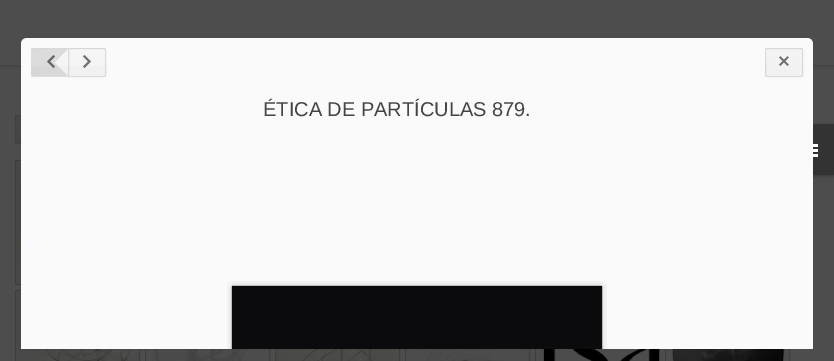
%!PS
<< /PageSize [834 361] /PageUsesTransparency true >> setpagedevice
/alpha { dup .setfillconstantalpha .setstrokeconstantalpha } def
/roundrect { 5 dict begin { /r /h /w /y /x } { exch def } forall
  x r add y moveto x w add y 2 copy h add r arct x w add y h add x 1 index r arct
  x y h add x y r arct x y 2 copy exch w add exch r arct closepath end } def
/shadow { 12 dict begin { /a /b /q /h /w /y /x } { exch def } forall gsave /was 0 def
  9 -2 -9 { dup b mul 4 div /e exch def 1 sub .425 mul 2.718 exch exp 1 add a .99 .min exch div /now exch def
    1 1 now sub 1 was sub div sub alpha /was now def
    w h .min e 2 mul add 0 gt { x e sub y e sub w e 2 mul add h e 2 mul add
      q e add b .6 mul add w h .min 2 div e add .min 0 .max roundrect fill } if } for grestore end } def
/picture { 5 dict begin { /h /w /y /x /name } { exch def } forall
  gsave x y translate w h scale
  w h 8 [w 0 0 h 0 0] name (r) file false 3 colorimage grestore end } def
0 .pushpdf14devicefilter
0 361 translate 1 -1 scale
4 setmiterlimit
0.302 setgray
0 0 834 361 rectfill
0 setgray
0 0 834 65 0 2.5 0.3 shadow
0.302 setgray
0 0 834 65 rectfill
gsave newpath 16 116 moveto 21 116 lineto 21 143 lineto 16 143 lineto closepath clip newpath
<< /ShadingType 2 /ColorSpace /DeviceRGB /Coords [56 116 56 143] /Extend [true true] /Function << /FunctionType 2 /Domain [0 1] /C0 [0.282 0.282 0.282] /C1 [0.271 0.271 0.271] /N 1 >> >> shfill grestore
0.251 setgray
15.5 115.5 81 28 rectstroke
0.239 setgray
15.5 160.5 124 124 rectstroke
15.5 290.5 124 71 rectstroke
(img7.rgb) 16 291 123 70 picture
145.5 290.5 124 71 rectstroke
275.5 290.5 124 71 rectstroke
405.5 290.5 124 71 rectstroke
535.5 290.5 124 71 rectstroke
665.5 290.5 124 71 rectstroke
0 setgray
784 125 50 51 2 1.5 0.3 shadow
0.98 setgray
newpath 27 38 moveto 807 38 lineto 810.5 38 813 40.5 813 44 curveto 813 349 lineto 21 349 lineto 21 44 lineto 21 40.5 23.5 38 27 38 curveto closepath fill
0.961 setgray
newpath 33 48 moveto 69 48 lineto 69 77 lineto 33 77 lineto 32 77 31 76 31 75 curveto 31 50 lineto 31 49 32 48 33 48 curveto closepath fill
gsave newpath 31 48 moveto 69 48 lineto 69 49 lineto 31 49 lineto closepath clip newpath
<< /ShadingType 2 /ColorSpace /DeviceRGB /Coords [50 22 50 49] /Extend [true true] /Function << /FunctionType 2 /Domain [0 1] /C0 [0.961 0.961 0.961] /C1 [0.945 0.945 0.945] /N 1 >> >> shfill grestore
gsave newpath 31 66 moveto 68 66 lineto 68 76 lineto 31 76 lineto closepath clip newpath
<< /ShadingType 2 /ColorSpace /DeviceRGB /Coords [50 49 50 76] /Extend [true true] /Function << /FunctionType 2 /Domain [0 1] /C0 [0.961 0.961 0.961] /C1 [0.945 0.945 0.945] /N 1 >> >> shfill grestore
0.1 alpha
0 setgray
newpath 33 48 moveto 69 48 lineto 54.5 62.5 lineto 45.5 62.5 lineto 31.5 48.5 lineto closepath fill
newpath 69 77 moveto 33 77 lineto 31.5 76.5 lineto 45.5 62.5 lineto 54.5 62.5 lineto closepath fill
newpath 31.5 76.5 moveto 45.5 62.5 lineto 31.5 48.5 lineto 31 50 lineto 31 75 lineto closepath fill
1 alpha
(img1.rgb) 47 55 8 13 picture
0.961 setgray
newpath 68 48 moveto 104 48 lineto 105 48 106 49 106 50 curveto 106 75 lineto 106 76 105 77 104 77 curveto 68 77 lineto closepath fill
gsave newpath 68 48 moveto 106 48 lineto 106 49 lineto 68 49 lineto closepath clip newpath
<< /ShadingType 2 /ColorSpace /DeviceRGB /Coords [87 22 87 49] /Extend [true true] /Function << /FunctionType 2 /Domain [0 1] /C0 [0.961 0.961 0.961] /C1 [0.945 0.945 0.945] /N 1 >> >> shfill grestore
gsave newpath 68 66 moveto 106 66 lineto 106 76 lineto 68 76 lineto closepath clip newpath
<< /ShadingType 2 /ColorSpace /DeviceRGB /Coords [87 49 87 76] /Extend [true true] /Function << /FunctionType 2 /Domain [0 1] /C0 [0.961 0.961 0.961] /C1 [0.945 0.945 0.945] /N 1 >> >> shfill grestore
0.1 alpha
0 setgray
newpath 68.5 48.5 moveto 104 48.5 lineto 105 48.5 105.5 49 105.5 50 curveto 105.5 75 lineto 105.5 76 105 76.5 104 76.5 curveto 68.5 76.5 lineto closepath stroke
1 alpha
(img2.rgb) 83 55 8 13 picture
0.961 setgray
765 48 38 29 2 roundrect fill
gsave
765 48 38 29 2 roundrect clip newpath
gsave newpath 765 48 moveto 803 48 lineto 803 49 lineto 765 49 lineto closepath clip newpath
<< /ShadingType 2 /ColorSpace /DeviceRGB /Coords [784 22 784 49] /Extend [true true] /Function << /FunctionType 2 /Domain [0 1] /C0 [0.961 0.961 0.961] /C1 [0.945 0.945 0.945] /N 1 >> >> shfill grestore
gsave newpath 765 49 moveto 803 49 lineto 803 76 lineto 765 76 lineto closepath clip newpath
<< /ShadingType 2 /ColorSpace /DeviceRGB /Coords [784 49 784 76] /Extend [true true] /Function << /FunctionType 2 /Domain [0 1] /C0 [0.961 0.961 0.961] /C1 [0.945 0.945 0.945] /N 1 >> >> shfill grestore
grestore
0.1 alpha
0 setgray
765.5 48.5 37 28 1.5 roundrect stroke
1 alpha
(img3.rgb) 779 56 10 10 picture
/LiberationSans-Regular [20 0 0 -20 0 0] selectfont
0.267 setgray
263 116 moveto (ÉTICA DE PARTÍCULAS 879.) show
(img4.rgb) 227 281 380 68 picture
(img5.rgb) 231 285 372 64 picture
(img6.rgb) 16 161 5 123 picture
(img8.rgb) 146 349 123 12 picture
(img9.rgb) 276 349 123 12 picture
(img10.rgb) 406 349 123 12 picture
(img11.rgb) 536 349 123 12 picture
(img12.rgb) 666 349 123 12 picture
0.2 setgray
813 124 21 51 rectfill
(img13.rgb) 813 144 5 13 picture
.poppdf14devicefilter showpage
